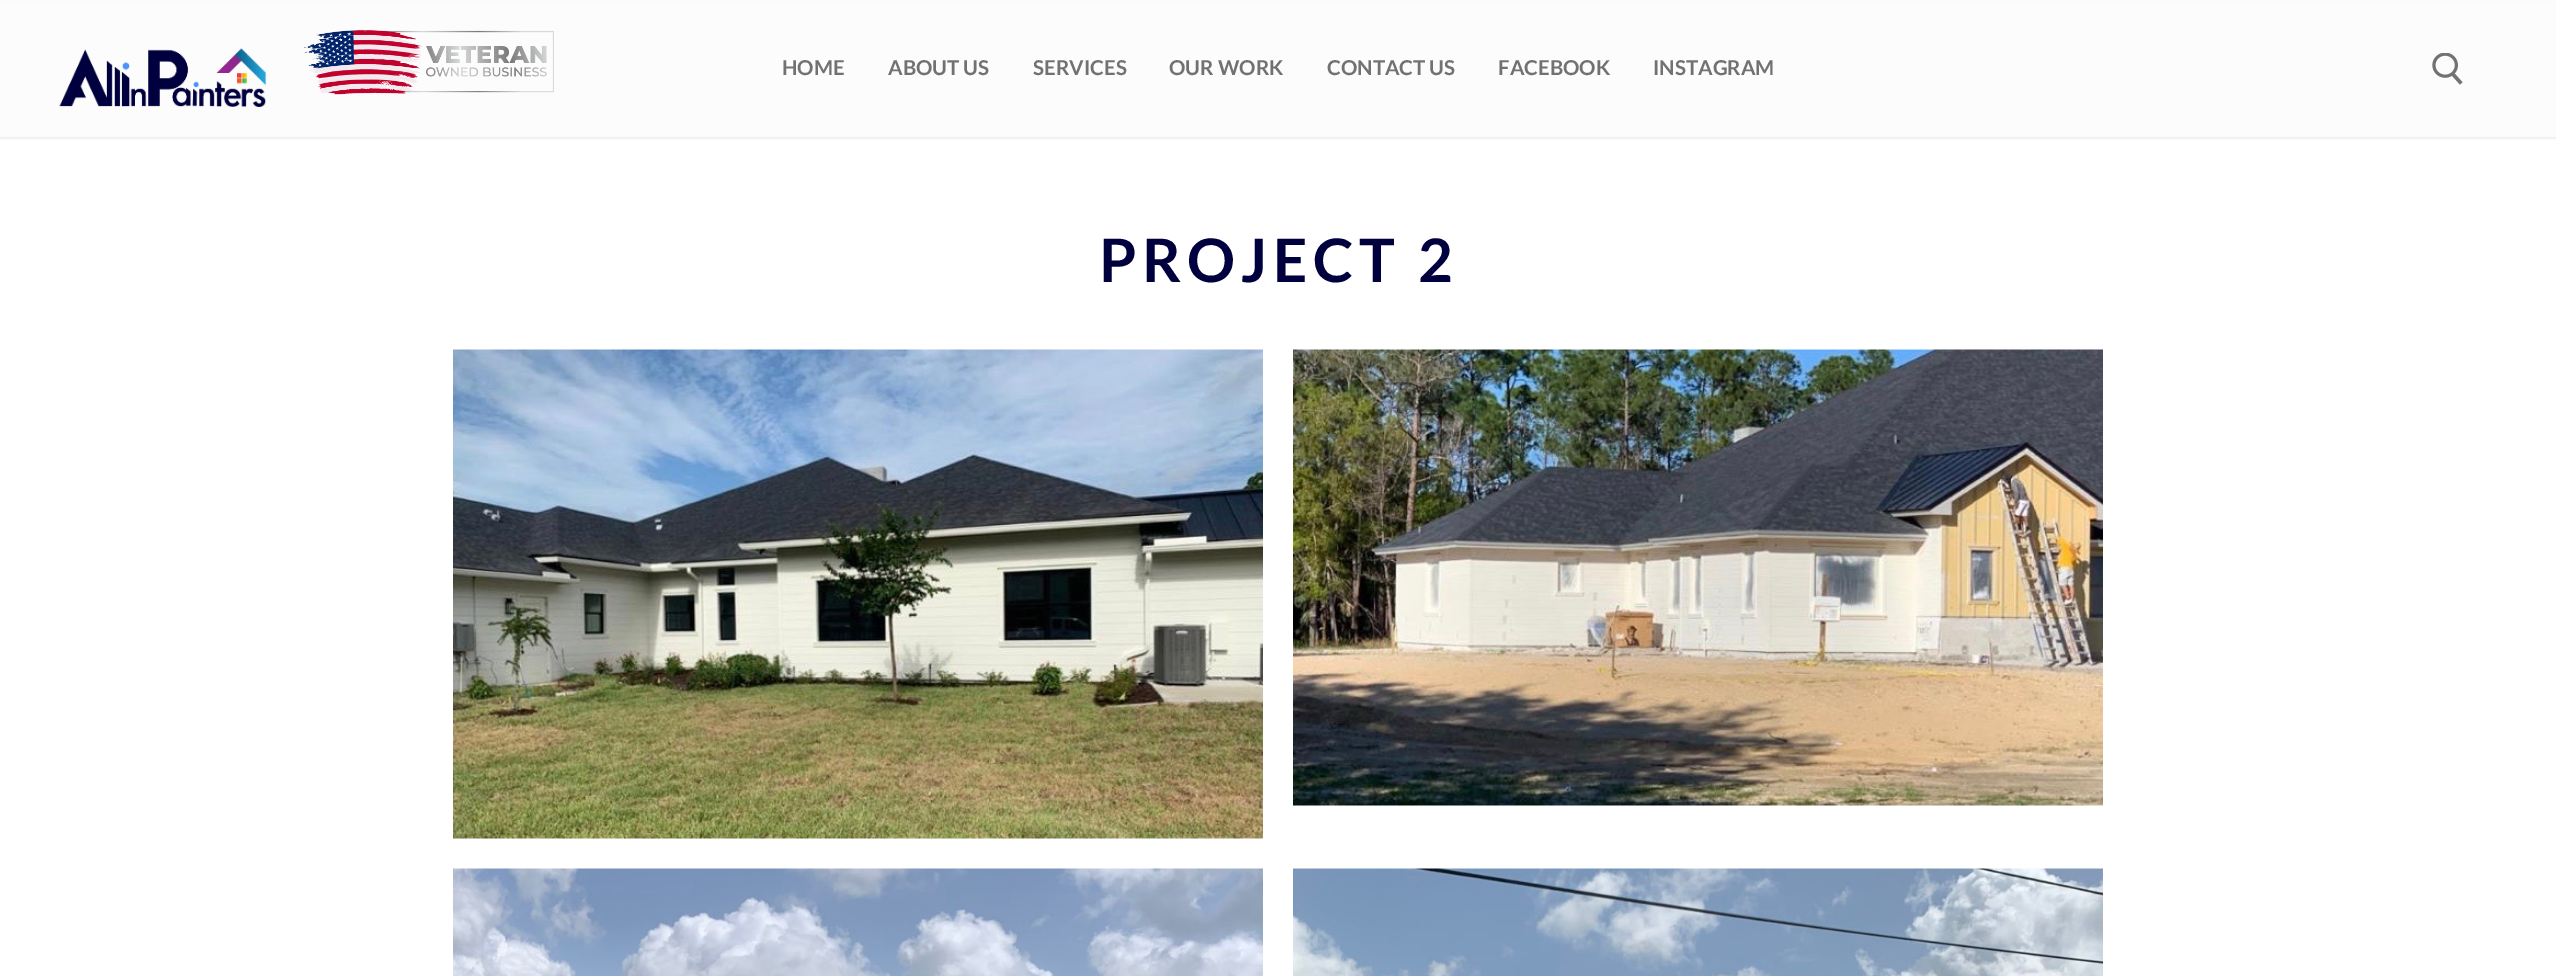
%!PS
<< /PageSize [2556 976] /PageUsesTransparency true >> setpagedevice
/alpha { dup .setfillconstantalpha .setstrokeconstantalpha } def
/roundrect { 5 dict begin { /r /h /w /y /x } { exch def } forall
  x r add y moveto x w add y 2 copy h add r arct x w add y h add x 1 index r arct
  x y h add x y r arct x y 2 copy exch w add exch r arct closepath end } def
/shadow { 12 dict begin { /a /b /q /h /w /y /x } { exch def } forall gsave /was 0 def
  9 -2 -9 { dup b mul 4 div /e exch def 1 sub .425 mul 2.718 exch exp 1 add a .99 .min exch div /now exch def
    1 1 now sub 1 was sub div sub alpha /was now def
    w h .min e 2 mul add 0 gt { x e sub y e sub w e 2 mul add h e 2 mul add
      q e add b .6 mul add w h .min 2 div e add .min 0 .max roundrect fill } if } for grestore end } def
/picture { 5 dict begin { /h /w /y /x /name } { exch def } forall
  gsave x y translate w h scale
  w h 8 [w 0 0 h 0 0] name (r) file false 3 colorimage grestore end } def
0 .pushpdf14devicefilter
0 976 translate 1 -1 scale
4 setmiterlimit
1 setgray
0 0 2556 976 rectfill
0.882 0.898 0.918 setrgbcolor
0 2 2556 136 0 1.5 1 shadow
0.988 setgray
0 1 2556 136 rectfill
(img1.rgb) 59 48 208 59 picture
(img2.rgb) 303 30 251 65 picture
/Lato-Bold [20.5 0 0 -20.5 0 0] selectfont
0.443 setgray
782 75 moveto (HOME) show
888 75 moveto (ABOUT US) show
1033 75 moveto (SERVICES) show
1169 75 moveto (OUR WORK) show
1327 75 moveto (CONTACT US) show
1498 75 moveto (FACEBOOK) show
1653 75 moveto (INSTAGRAM) show
(img3.rgb) 2432 53 31 32 picture
/Lato-Bold [60 0 0 -60 0 0] selectfont
0 0 0.247 setrgbcolor
1099 282 moveto 5.75 0 (PROJECT 2) ashow
(img4.rgb) 453 349 810 490 picture
(img5.rgb) 1293 349 810 457 picture
(img6.rgb) 453 868 810 108 picture
(img7.rgb) 1293 868 810 108 picture
.poppdf14devicefilter showpage
